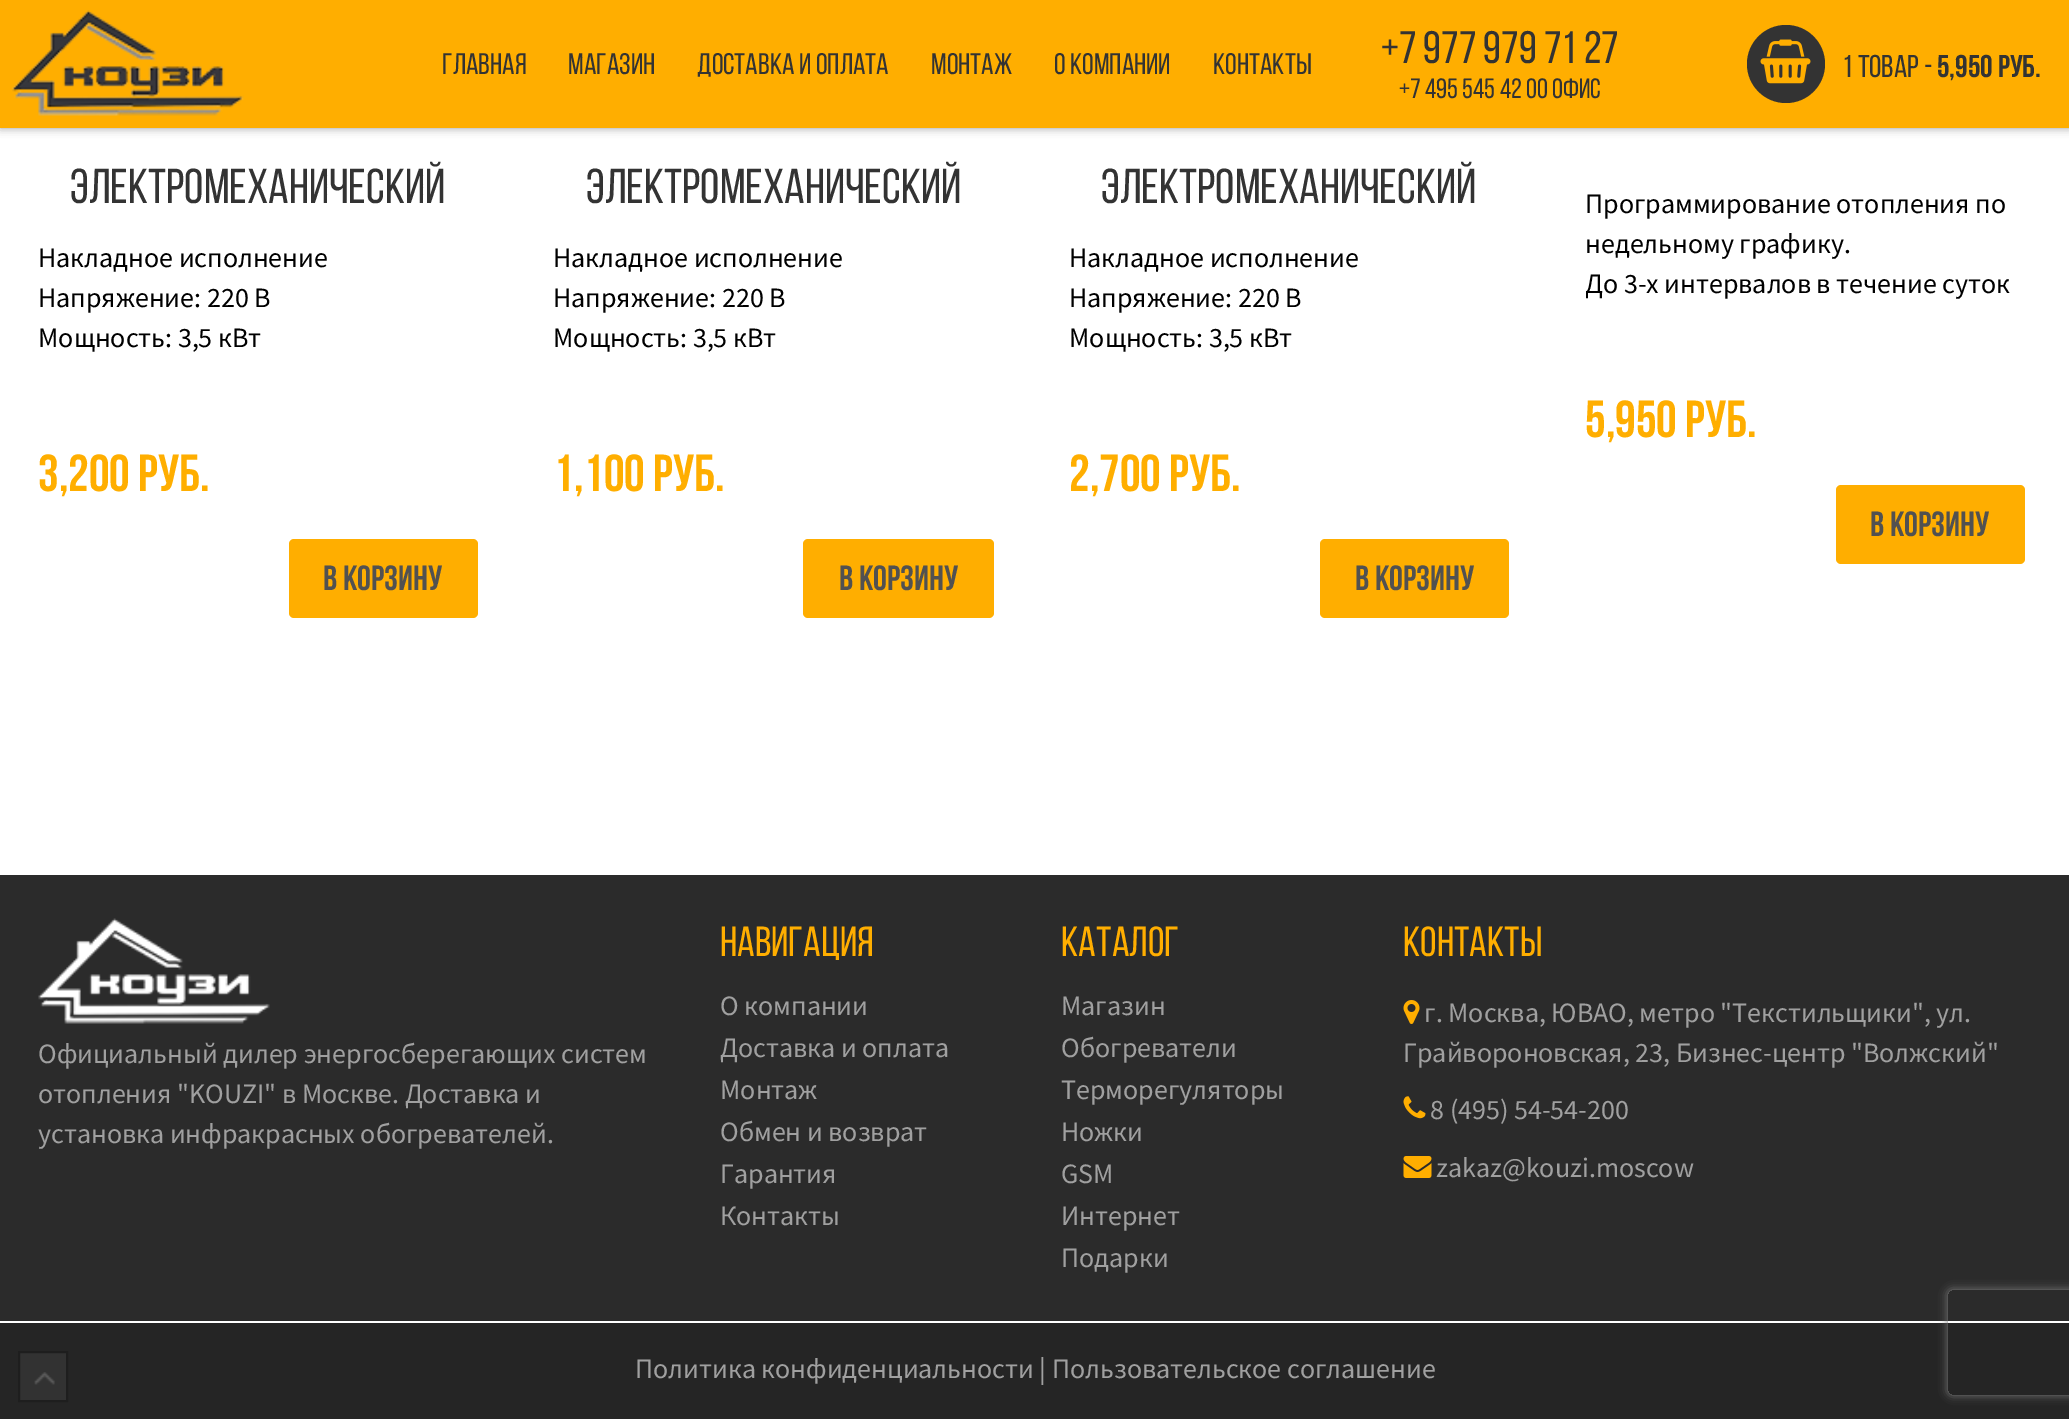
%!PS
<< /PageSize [2069 1419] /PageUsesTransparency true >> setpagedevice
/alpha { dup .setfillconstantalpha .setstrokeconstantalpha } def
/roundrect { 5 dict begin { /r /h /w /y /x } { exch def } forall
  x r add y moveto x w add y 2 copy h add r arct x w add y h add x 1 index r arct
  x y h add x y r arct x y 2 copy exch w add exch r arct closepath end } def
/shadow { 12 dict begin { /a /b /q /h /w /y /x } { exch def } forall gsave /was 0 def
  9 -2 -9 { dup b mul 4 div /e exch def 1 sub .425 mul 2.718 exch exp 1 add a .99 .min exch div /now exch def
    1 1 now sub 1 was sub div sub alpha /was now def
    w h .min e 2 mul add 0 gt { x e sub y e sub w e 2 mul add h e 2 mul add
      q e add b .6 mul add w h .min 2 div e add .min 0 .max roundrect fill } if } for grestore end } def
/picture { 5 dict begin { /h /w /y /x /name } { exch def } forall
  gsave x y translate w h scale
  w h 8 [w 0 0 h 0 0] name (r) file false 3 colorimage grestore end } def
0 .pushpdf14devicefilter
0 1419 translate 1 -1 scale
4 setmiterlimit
1 setgray
0 0 2069 1419 rectfill
0 setgray
0 0 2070 128 0 4.5 0.37 shadow
1 0.682 0 setrgbcolor
0 0 2069 128 rectfill
(img1.rgb) 12 10 232 106 picture
/BebasNeue-Regular [29.75 0 0 -29.75 0 0] selectfont
0.2 setgray
442 74 moveto (ГЛАВНАЯ) show
568 74 moveto (МАГАЗИН) show
697 74 moveto (ДОСТАВКА И ОПЛАТА) show
931 74 moveto (МОНТАЖ) show
1054 74 moveto (О КОМПАНИИ) show
1213 74 moveto (КОНТАКТЫ) show
/BebasNeue-Regular [45.5 0 0 -45.5 0 0] selectfont
1381 63 moveto (+7 977 979 71 27) show
/BebasNeue-Regular [28 0 0 -28 0 0] selectfont
1399 98 moveto (+7 495 545 42 00 офис) show
newpath 1786 64 39 0 360 arc closepath fill
(img2.rgb) 1760 39 51 45 picture
/BebasNeue-Regular [31.5 0 0 -31.5 0 0] selectfont
1842 77 moveto (1 товар -) show
/BebasNeue-Bold [31.5 0 0 -31.5 0 0] selectfont
1937 77 moveto (5,950 руб.) show
/BebasNeue-Regular [49 0 0 -49 0 0] selectfont
70 203 moveto (электромеханический) show
/SourceSansPro-Regular [28 0 0 -28 0 0] selectfont
0 setgray
38 267 moveto (Накладное исполнение) show
38 307 moveto (Напряжение: 220 В) show
38 347 moveto (Мощность: 3,5 кВт) show
/BebasNeue-Bold [52 0 0 -52 0 0] selectfont
1 0.682 0 setrgbcolor
38 491 moveto (3,200 руб.) show
289 539 189 79 5 roundrect fill
/BebasNeue-Bold [35 0 0 -35 0 0] selectfont
0.318 setgray
323 590 moveto (В корзину) show
/BebasNeue-Regular [49 0 0 -49 0 0] selectfont
0.2 setgray
586 203 moveto (электромеханический) show
/SourceSansPro-Regular [28 0 0 -28 0 0] selectfont
0 setgray
553 267 moveto (Накладное исполнение) show
553 307 moveto (Напряжение: 220 В) show
553 347 moveto (Мощность: 3,5 кВт) show
/BebasNeue-Bold [52 0 0 -52 0 0] selectfont
1 0.682 0 setrgbcolor
553 491 moveto (1,100 руб.) show
803 539 191 79 5 roundrect fill
/BebasNeue-Bold [35 0 0 -35 0 0] selectfont
0.318 setgray
839 590 moveto (В корзину) show
/BebasNeue-Regular [49 0 0 -49 0 0] selectfont
0.2 setgray
1101 203 moveto (электромеханический) show
/SourceSansPro-Regular [28 0 0 -28 0 0] selectfont
0 setgray
1069 267 moveto (Накладное исполнение) show
1069 307 moveto (Напряжение: 220 В) show
1069 347 moveto (Мощность: 3,5 кВт) show
/BebasNeue-Bold [52 0 0 -52 0 0] selectfont
1 0.682 0 setrgbcolor
1069 491 moveto (2,700 руб.) show
1320 539 189 79 5 roundrect fill
/BebasNeue-Bold [35 0 0 -35 0 0] selectfont
0.318 setgray
1355 590 moveto (В корзину) show
/SourceSansPro-Regular [28 0 0 -28 0 0] selectfont
0 setgray
1585 213 moveto (Программирование отопления по) show
1585 253 moveto (недельному графику.) show
gsave
1586 184 439 122 rectclip
1585 293 moveto (До 3-х интервалов в течение суток) show
grestore
/BebasNeue-Bold [52 0 0 -52 0 0] selectfont
1 0.682 0 setrgbcolor
1585 437 moveto (5,950 руб.) show
1836 485 189 79 5 roundrect fill
/BebasNeue-Bold [35 0 0 -35 0 0] selectfont
0.318 setgray
1870 536 moveto (В корзину) show
0.169 setgray
0 875 2069 446 rectfill
(img3.rgb) 38 918 232 106 picture
/SourceSansPro-Regular [28 0 0 -28 0 0] selectfont
0.627 setgray
38 1063 moveto (Официальный дилер энергосберегающих систем) show
38 1103 moveto (отопления "KOUZI" в Москве. Доставка и) show
38 1143 moveto (установка инфракрасных обогревателей.) show
/BebasNeue-Regular [42 0 0 -42 0 0] selectfont
1 0.682 0 setrgbcolor
720 956 moveto (Навигация) show
/SourceSansPro-Regular [28 0 0 -28 0 0] selectfont
0.627 setgray
720 1015 moveto (О компании) show
720 1057 moveto (Доставка и оплата) show
720 1099 moveto (Монтаж) show
720 1141 moveto (Обмен и возврат) show
720 1183 moveto (Гарантия) show
720 1225 moveto (Контакты) show
/BebasNeue-Regular [42 0 0 -42 0 0] selectfont
1 0.682 0 setrgbcolor
1061 956 moveto (Каталог) show
/SourceSansPro-Regular [28 0 0 -28 0 0] selectfont
0.627 setgray
1061 1015 moveto (Магазин) show
1061 1057 moveto (Обогреватели) show
1061 1099 moveto (Терморегуляторы) show
1061 1141 moveto (Ножки) show
1061 1183 moveto (GSM) show
1061 1225 moveto (Интернет) show
1061 1267 moveto (Подарки) show
/BebasNeue-Regular [42 0 0 -42 0 0] selectfont
1 0.682 0 setrgbcolor
1403 956 moveto (Контакты) show
(img4.rgb) 1403 1000 17 24 picture
/SourceSansPro-Regular [28 0 0 -28 0 0] selectfont
0.627 setgray
1424 1022 moveto (г. Москва, ЮВАО, метро "Текстильщики", ул.) show
1403 1062 moveto (Грайвороновская, 23, Бизнес-центр "Волжский") show
(img5.rgb) 1403 1096 23 23 picture
1430 1119 moveto (8 \(495\) 54-54-200) show
(img6.rgb) 1403 1156 29 22 picture
1436 1177 moveto (zakaz@kouzi.moscow) show
0.145 setgray
0 1323 2069 96 rectfill
0.196 setgray
20 1353 46 47 rectfill
(img7.rgb) 34 1372 21 13 picture
0.118 setgray
2 setlinewidth
19 1352 48 49 rectstroke
0.627 setgray
635 1378 moveto (Политика конфиденциальности) show
1039 1378 moveto (|) show
1052 1378 moveto (Пользовательское соглашение) show
gsave
newpath 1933 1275 moveto 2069 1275 lineto 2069 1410 lineto 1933 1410 lineto closepath 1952 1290 moveto 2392 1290 lineto 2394 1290 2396 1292 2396 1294 curveto 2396 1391 lineto 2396 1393 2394 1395 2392 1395 curveto 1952 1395 lineto 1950 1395 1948 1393 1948 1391 curveto 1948 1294 lineto 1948 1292 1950 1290 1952 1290 curveto closepath eoclip newpath
0.502 setgray
1948 1290 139 105 4 4.5 1 shadow
grestore
.poppdf14devicefilter showpage
